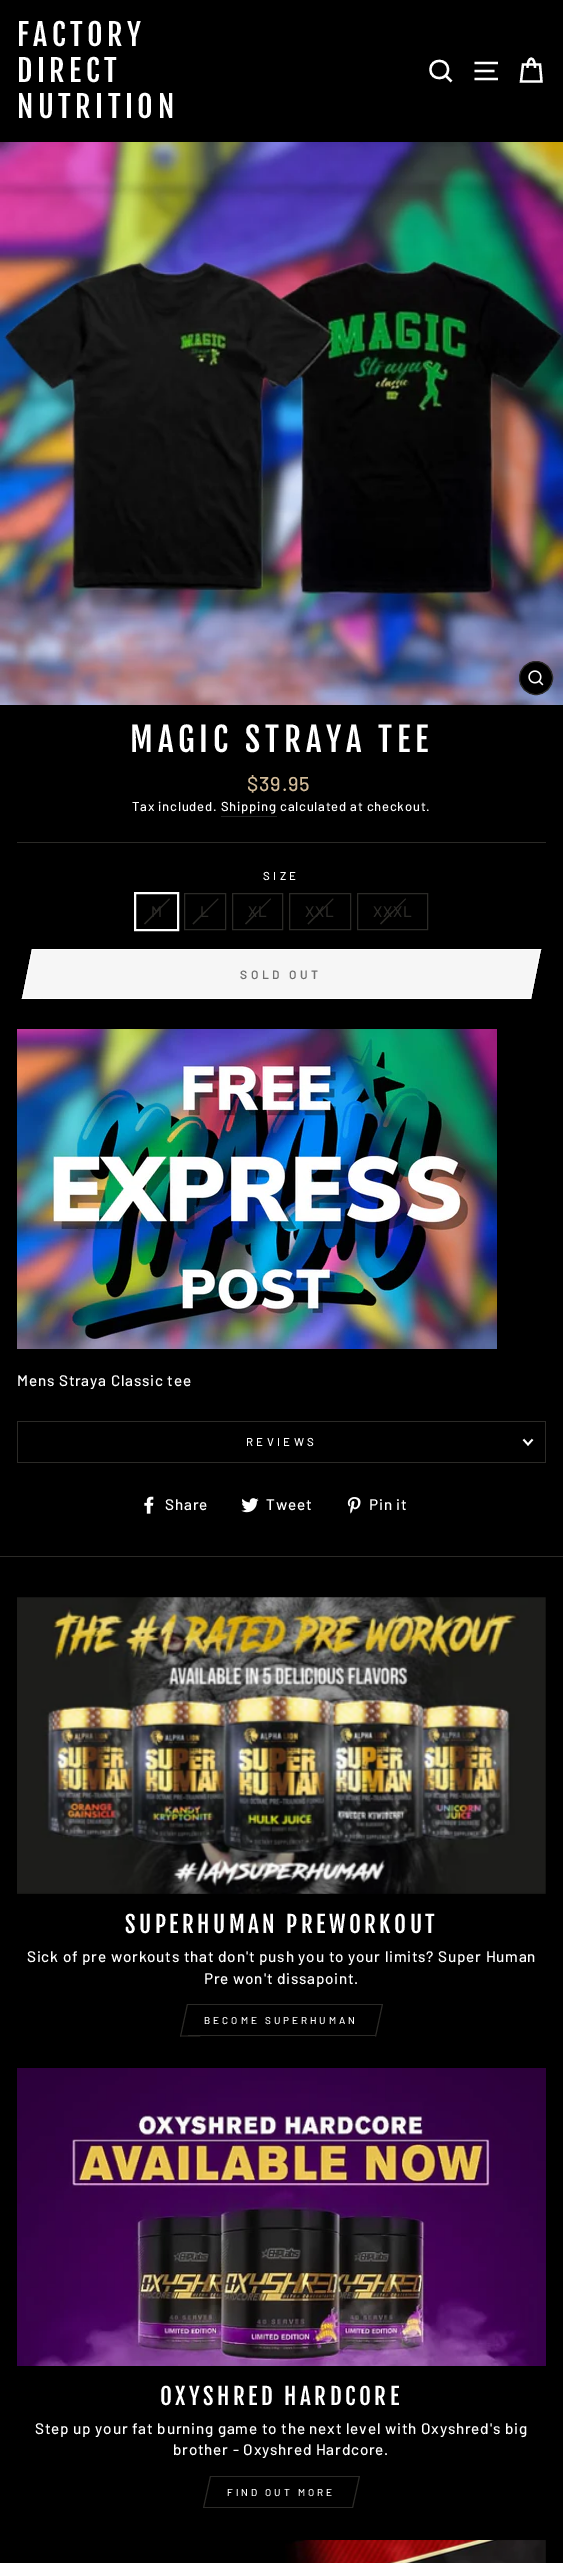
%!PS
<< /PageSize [563 2563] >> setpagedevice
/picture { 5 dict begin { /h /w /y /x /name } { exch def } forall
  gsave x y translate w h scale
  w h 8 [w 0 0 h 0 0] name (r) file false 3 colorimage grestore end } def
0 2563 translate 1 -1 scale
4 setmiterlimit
0 setgray
0 0 563 2563 rectfill
/FjallaOne-Regular [30 0 0 -30 0 0] selectfont
1 setgray
17 46 moveto 4.5 0 (FACTORY) ashow
17 82 moveto 4.5 0 (DIRECT) ashow
17 118 moveto 4.5 0 (NUTRITION) ashow
2.3 setlinewidth
newpath 448 69.5 moveto 448 81 430.5 81 430.5 69.5 curveto 430.5 58 448 58 448 69.5 curveto closepath 451.5 81.5 moveto 445.5 75.5 lineto stroke
newpath 474.5 63 moveto 498 63 lineto 474.5 71 moveto 494.5 71 lineto 474.5 79 moveto 498 79 lineto 527.5 68 moveto 527.5 55.5 535 55.5 535 68 curveto stroke
newpath 523 64.5 moveto 540 64.5 lineto 541.5 81.5 lineto 521 81.5 lineto closepath stroke
(img1.rgb) 0 142 563 563 picture
0 setgray
newpath 536 678 16.5 0 360 arc closepath gsave fill grestore
0.169 0.165 0.153 setrgbcolor
1 setlinewidth
stroke
(img2.rgb) 528 670 16 16 picture
/FjallaOne-Regular [33 0 0 -33 0 0] selectfont
1 setgray
130 752 moveto 4.9 0 (MAGIC STRAYA TEE) ashow
/Barlow-Medium [20 0 0 -20 0 0] selectfont
0.82 0.729 0.596 setrgbcolor
247 791 moveto 0.77 0 ($39.95) ashow
/Barlow-Medium [13 0 0 -13 0 0] selectfont
1 setgray
132 811 moveto 0.77 0 (Tax included. Shipping) ashow
280 811 moveto 0.77 0 (calculated at checkout.) ashow
0.149 setgray
221 816 56 1 rectfill
0.169 0.165 0.153 setrgbcolor
17 842 529 1 rectfill
/Barlow-Medium [11.5 0 0 -11.5 0 0] selectfont
1 setgray
263 880 moveto 3.4 0 (SIZE) ashow
2 setlinewidth
135 893 43 37 rectstroke
0.169 0.165 0.153 setrgbcolor
newpath 169 898.5 moveto 170 899 lineto 145 924.5 lineto 144 923.5 lineto closepath fill
/Barlow-Medium [15.3 0 0 -15.3 0 0] selectfont
151 917 moveto 0.77 0 (M) ashow
1 setlinewidth
184.5 893.5 41 36 rectstroke
newpath 218 898.5 moveto 218.5 899 lineto 193.5 924.5 lineto 192.5 923.5 lineto closepath fill
200 917 moveto 0.77 0 (L) ashow
232.5 893.5 50 36 rectstroke
newpath 270.5 898.5 moveto 271 899 lineto 246 924.5 lineto 245 923.5 lineto closepath fill
248 917 moveto 0.77 0 (XL) ashow
289.5 893.5 61 36 rectstroke
newpath 333 898.5 moveto 333.5 899 lineto 308.5 924.5 lineto 307.5 923.5 lineto closepath fill
305 917 moveto 0.77 0 (XXL) ashow
357.5 893.5 70 36 rectstroke
newpath 405.5 898.5 moveto 406 899 lineto 381 924.5 lineto 380 923.5 lineto closepath fill
373 917 moveto 0.77 0 (XXXL) ashow
0.965 setgray
42 950 479 48 rectfill
1 setgray
52 949 469 1 rectfill
42 998 469 1 rectfill
0.965 setgray
newpath 32 949 moveto 52 949 lineto 42 999 lineto 22 999 lineto closepath fill
1 setgray
32 949 20 1 rectfill
newpath 22 998 moveto 42 998 lineto 41.5 999 lineto 21.5 999 lineto closepath fill
newpath 32 949 moveto 33 949 lineto 23 999 lineto 22 999 lineto closepath fill
/Barlow-SemiBold [12 0 0 -12 0 0] selectfont
0.443 setgray
240 979 moveto 3.5 0 (SOLD OUT) ashow
0.965 setgray
newpath 521 949 moveto 541 949 lineto 531 999 lineto 511 999 lineto closepath fill
1 setgray
newpath 521.5 949 moveto 541.5 949 lineto 541 950 lineto 521 950 lineto closepath fill
newpath 540 949 moveto 541 949 lineto 531 999 lineto 530 999 lineto closepath fill
511 998 20 1 rectfill
(img3.rgb) 17 1029 480 320 picture
/Barlow-Medium [15.3 0 0 -15.3 0 0] selectfont
17 1386 moveto 0.77 0 (Mens Straya Classic tee) ashow
0.169 0.165 0.153 setrgbcolor
17 1462 529 1 rectfill
17 1421 529 1 rectfill
545 1421 1 41 rectfill
17 1421 1 41 rectfill
/Barlow-Medium [11.5 0 0 -11.5 0 0] selectfont
1 setgray
246 1446 moveto 3.4 0 (REVIEWS) ashow
1.8 setlinewidth
newpath 523.5 1439.5 moveto 528 1444.5 lineto 532.5 1439.5 lineto stroke
(img4.rgb) 144 1496 10 18 picture
/Barlow-Medium [15.3 0 0 -15.3 0 0] selectfont
165 1510 moveto 0.77 0 (Share) ashow
(img5.rgb) 241 1498 18 15 picture
266 1510 moveto 0.77 0 (Tweet) ashow
(img6.rgb) 347 1497 14 17 picture
369 1510 moveto 0.77 0 (Pin it) ashow
0.169 0.165 0.153 setrgbcolor
0 1556 563 1 rectfill
(img7.rgb) 17 1597 529 297 picture
/FjallaOne-Regular [23 0 0 -23 0 0] selectfont
1 setgray
125 1933 moveto 3.4 0 (SUPERHUMAN PREWORKOUT) ashow
/Barlow-Medium [15.3 0 0 -15.3 0 0] selectfont
27 1962 moveto 0.77 0 (Sick of pre workouts that don't push you to your limits? Super Human) ashow
204 1984 moveto 0.77 0 (Pre won't dissapoint.) ashow
0.169 0.165 0.153 setrgbcolor
188 2004 175 1 rectfill
188 2035 187 1 rectfill
newpath 180.5 2035.5 moveto 200.5 2035.5 lineto 200 2036.5 lineto 180 2036.5 lineto closepath fill
newpath 187 2004 moveto 188 2004 lineto 181 2036.5 lineto 180 2036.5 lineto closepath fill
/Barlow-Medium [10 0 0 -10 0 0] selectfont
1 setgray
204 2024 moveto 3 0 (BECOME SUPERHUMAN) ashow
0.169 0.165 0.153 setrgbcolor
newpath 363 2004 moveto 383 2004 lineto 382.5 2005 lineto 362.5 2005 lineto closepath fill
newpath 382 2004 moveto 383 2004 lineto 376 2036.5 lineto 375 2036.5 lineto closepath fill
(img8.rgb) 17 2068 529 298 picture
/FjallaOne-Regular [23 0 0 -23 0 0] selectfont
1 setgray
160 2405 moveto 3.4 0 (OXYSHRED HARDCORE) ashow
/Barlow-Medium [15.3 0 0 -15.3 0 0] selectfont
35 2434 moveto 0.77 0 (Step up your fat burning game to the next level with Oxyshred's big) ashow
173 2455 moveto 0.77 0 (brother - Oxyshred Hardcore.) ashow
0.169 0.165 0.153 setrgbcolor
211 2476 129 1 rectfill
223 2507 129 1 rectfill
newpath 203.5 2507 moveto 223.5 2507 lineto 223 2508 lineto 203 2508 lineto closepath fill
newpath 210 2476 moveto 211 2476 lineto 204 2508 lineto 203 2508 lineto closepath fill
/Barlow-Medium [10 0 0 -10 0 0] selectfont
1 setgray
227 2496 moveto 3 0 (FIND OUT MORE) ashow
0.169 0.165 0.153 setrgbcolor
newpath 340 2476 moveto 360 2476 lineto 359.5 2477 lineto 339.5 2477 lineto closepath fill
newpath 359 2476 moveto 360 2476 lineto 353 2508 lineto 352 2508 lineto closepath fill
(img9.rgb) 285 2540 261 23 picture
showpage
